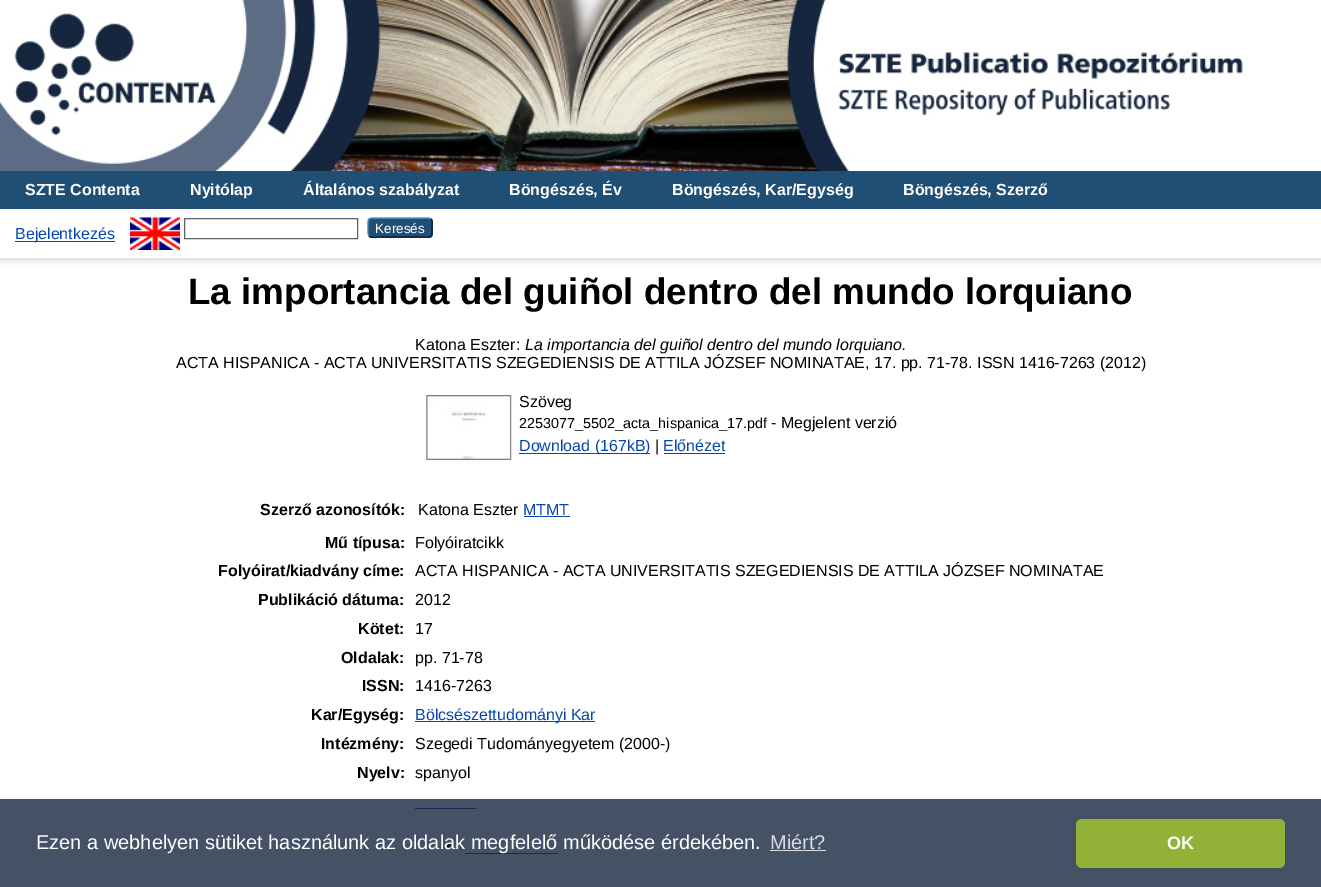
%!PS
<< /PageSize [1321 887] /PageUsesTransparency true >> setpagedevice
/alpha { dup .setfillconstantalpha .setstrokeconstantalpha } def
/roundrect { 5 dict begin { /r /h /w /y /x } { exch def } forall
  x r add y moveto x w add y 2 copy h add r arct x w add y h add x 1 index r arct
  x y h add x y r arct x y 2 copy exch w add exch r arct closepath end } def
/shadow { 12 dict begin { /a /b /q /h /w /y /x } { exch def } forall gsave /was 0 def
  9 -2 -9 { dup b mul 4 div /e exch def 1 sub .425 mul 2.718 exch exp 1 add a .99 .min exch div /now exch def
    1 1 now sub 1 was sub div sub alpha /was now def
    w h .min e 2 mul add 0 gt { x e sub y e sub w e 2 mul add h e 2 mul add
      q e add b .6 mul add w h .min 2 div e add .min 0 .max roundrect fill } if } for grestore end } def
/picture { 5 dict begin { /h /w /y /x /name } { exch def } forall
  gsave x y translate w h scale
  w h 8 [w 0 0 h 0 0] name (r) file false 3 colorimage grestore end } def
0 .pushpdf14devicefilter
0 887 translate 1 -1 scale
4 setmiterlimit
1 setgray
0 0 1321 887 rectfill
(img1.rgb) 0 0 1243 171 picture
0.125 0.31 0.463 setrgbcolor
0 171 1321 38 rectfill
/LiberationSans-Bold [16 0 0 -16 0 0] selectfont
1 setgray
25 195 moveto (SZTE Contenta) show
190 195 moveto (Nyitólap) show
303 195 moveto (Általános szabályzat) show
509 195 moveto (Böngészés, Év) show
672 195 moveto (Böngészés, Kar/Egység) show
903 195 moveto (Böngészés, Szerző) show
0.392 setgray
0 213 1321 47 0 4 0.3 shadow
1 setgray
0 210 1321 48 rectfill
0.024 0.271 0.678 setrgbcolor
15 241 100 1 rectfill
/LiberationSans-Regular [16 0 0 -16 0 0] selectfont
15 239 moveto (Bejelentkezés) show
(img2.rgb) 130 217 50 33 picture
0.376 setgray
184.5 218.5 173 20 rectstroke
0.122 0.31 0.463 setrgbcolor
368 218 65 20 4 roundrect fill
0.357 0.592 0.78 setrgbcolor
1.2 setlinewidth
newpath 369 219 moveto 371 218 lineto 429 218 lineto 431 219 lineto stroke
0.051 0.129 0.192 setrgbcolor
newpath 431 219 moveto 433 221 432 225 432 227.5 curveto 432 239 432 237 419 237 curveto 381 237 lineto 380 237 371.5 238.5 369 236 curveto stroke
0.322 0.529 0.702 setrgbcolor
newpath 369 236 moveto 367.5 234 368 229.5 368 227.5 curveto 368 225.5 367.5 221 369 219 curveto stroke
/LiberationSans-Regular [13.5 0 0 -13.5 0 0] selectfont
1 setgray
375 233 moveto (Keresés) show
/LiberationSans-Bold [36.8 0 0 -36.8 0 0] selectfont
0 setgray
188 304 moveto (La importancia del guiñol dentro del mundo lorquiano) show
/LiberationSans-Regular [16 0 0 -16 0 0] selectfont
415 350 moveto (Katona Eszter:) show
/LiberationSans-Italic [16 0 0 -16 0 0] selectfont
525 350 moveto (La importancia del guiñol dentro del mundo lorquiano.) show
/LiberationSans-Regular [16 0 0 -16 0 0] selectfont
176 368 moveto (ACTA HISPANICA - ACTA UNIVERSITATIS SZEGEDIENSIS DE ATTILA JÓZSEF NOMINATAE, 17. pp. 71-78. ISSN 1416-7263 \(2012\)) show
(img3.rgb) 426 395 86 65 picture
519 407 moveto (Szöveg) show
/LiberationSans-Regular [14.4 0 0 -14.4 0 0] selectfont
519 428 moveto (2253077_5502_acta_hispanica_17.pdf) show
/LiberationSans-Regular [16 0 0 -16 0 0] selectfont
771 428 moveto (- Megjelent verzió) show
0.024 0.271 0.678 setrgbcolor
519 453 131 1 rectfill
519 451 moveto (Download \(167kB\)) show
0 setgray
655 451 moveto (|) show
0.024 0.271 0.678 setrgbcolor
663 451 moveto (Előnézet) show
664 453 61 1 rectfill
/LiberationSans-Bold [16 0 0 -16 0 0] selectfont
0 setgray
260 515 moveto (Szerző azonosítók:) show
/LiberationSans-Regular [16 0 0 -16 0 0] selectfont
418 515 moveto (Katona Eszter) show
0.024 0.271 0.678 setrgbcolor
523 515 moveto (MTMT) show
524 516 46 1 rectfill
/LiberationSans-Bold [16 0 0 -16 0 0] selectfont
0 setgray
325 548 moveto (Mű típusa:) show
/LiberationSans-Regular [16 0 0 -16 0 0] selectfont
415 548 moveto (Folyóiratcikk) show
/LiberationSans-Bold [16 0 0 -16 0 0] selectfont
218 576 moveto (Folyóirat/kiadvány címe:) show
/LiberationSans-Regular [16 0 0 -16 0 0] selectfont
415 576 moveto (ACTA HISPANICA - ACTA UNIVERSITATIS SZEGEDIENSIS DE ATTILA JÓZSEF NOMINATAE) show
/LiberationSans-Bold [16 0 0 -16 0 0] selectfont
258 605 moveto (Publikáció dátuma:) show
/LiberationSans-Regular [16 0 0 -16 0 0] selectfont
415 605 moveto (2012) show
/LiberationSans-Bold [16 0 0 -16 0 0] selectfont
358 634 moveto (Kötet:) show
/LiberationSans-Regular [16 0 0 -16 0 0] selectfont
415 634 moveto (17) show
/LiberationSans-Bold [16 0 0 -16 0 0] selectfont
341 663 moveto (Oldalak:) show
/LiberationSans-Regular [16 0 0 -16 0 0] selectfont
415 663 moveto (pp. 71-78) show
/LiberationSans-Bold [16 0 0 -16 0 0] selectfont
362 691 moveto (ISSN:) show
/LiberationSans-Regular [16 0 0 -16 0 0] selectfont
415 691 moveto (1416-7263) show
/LiberationSans-Bold [16 0 0 -16 0 0] selectfont
311 720 moveto (Kar/Egység:) show
0.024 0.271 0.678 setrgbcolor
415 721 180 1 rectfill
/LiberationSans-Regular [16 0 0 -16 0 0] selectfont
415 720 moveto (Bölcsészettudományi Kar) show
/LiberationSans-Bold [16 0 0 -16 0 0] selectfont
0 setgray
321 749 moveto (Intézmény:) show
/LiberationSans-Regular [16 0 0 -16 0 0] selectfont
415 749 moveto (Szegedi Tudományegyetem \(2000-\)) show
/LiberationSans-Bold [16 0 0 -16 0 0] selectfont
357 778 moveto (Nyelv:) show
/LiberationSans-Regular [16 0 0 -16 0 0] selectfont
415 778 moveto (spanyol) show
0.024 0.271 0.678 setrgbcolor
415 808 61 1 rectfill
0 setgray
newpath 448.5 846.5 2.5 0 360 arc closepath fill
0.024 0.271 0.678 setrgbcolor
465 853 93 1 rectfill
0.8 alpha
0.086 0.149 0.247 setrgbcolor
0 799 1321 88 rectfill
/LiberationSans-Regular [20 0 0 -20 0 0] selectfont
1 alpha
1 setgray
36 849 moveto (Ezen a webhelyen sütiket használunk az oldalak megfelelő működése érdekében.) show
0.855 0.863 0.878 setrgbcolor
770 849 moveto (Miért?) show
770 850 56 1 rectfill
0.569 0.698 0.212 setrgbcolor
1076 819 209 49 6 roundrect fill
/LiberationSans-Bold [18 0 0 -18 0 0] selectfont
1 setgray
1167 849 moveto (OK) show
.poppdf14devicefilter showpage
